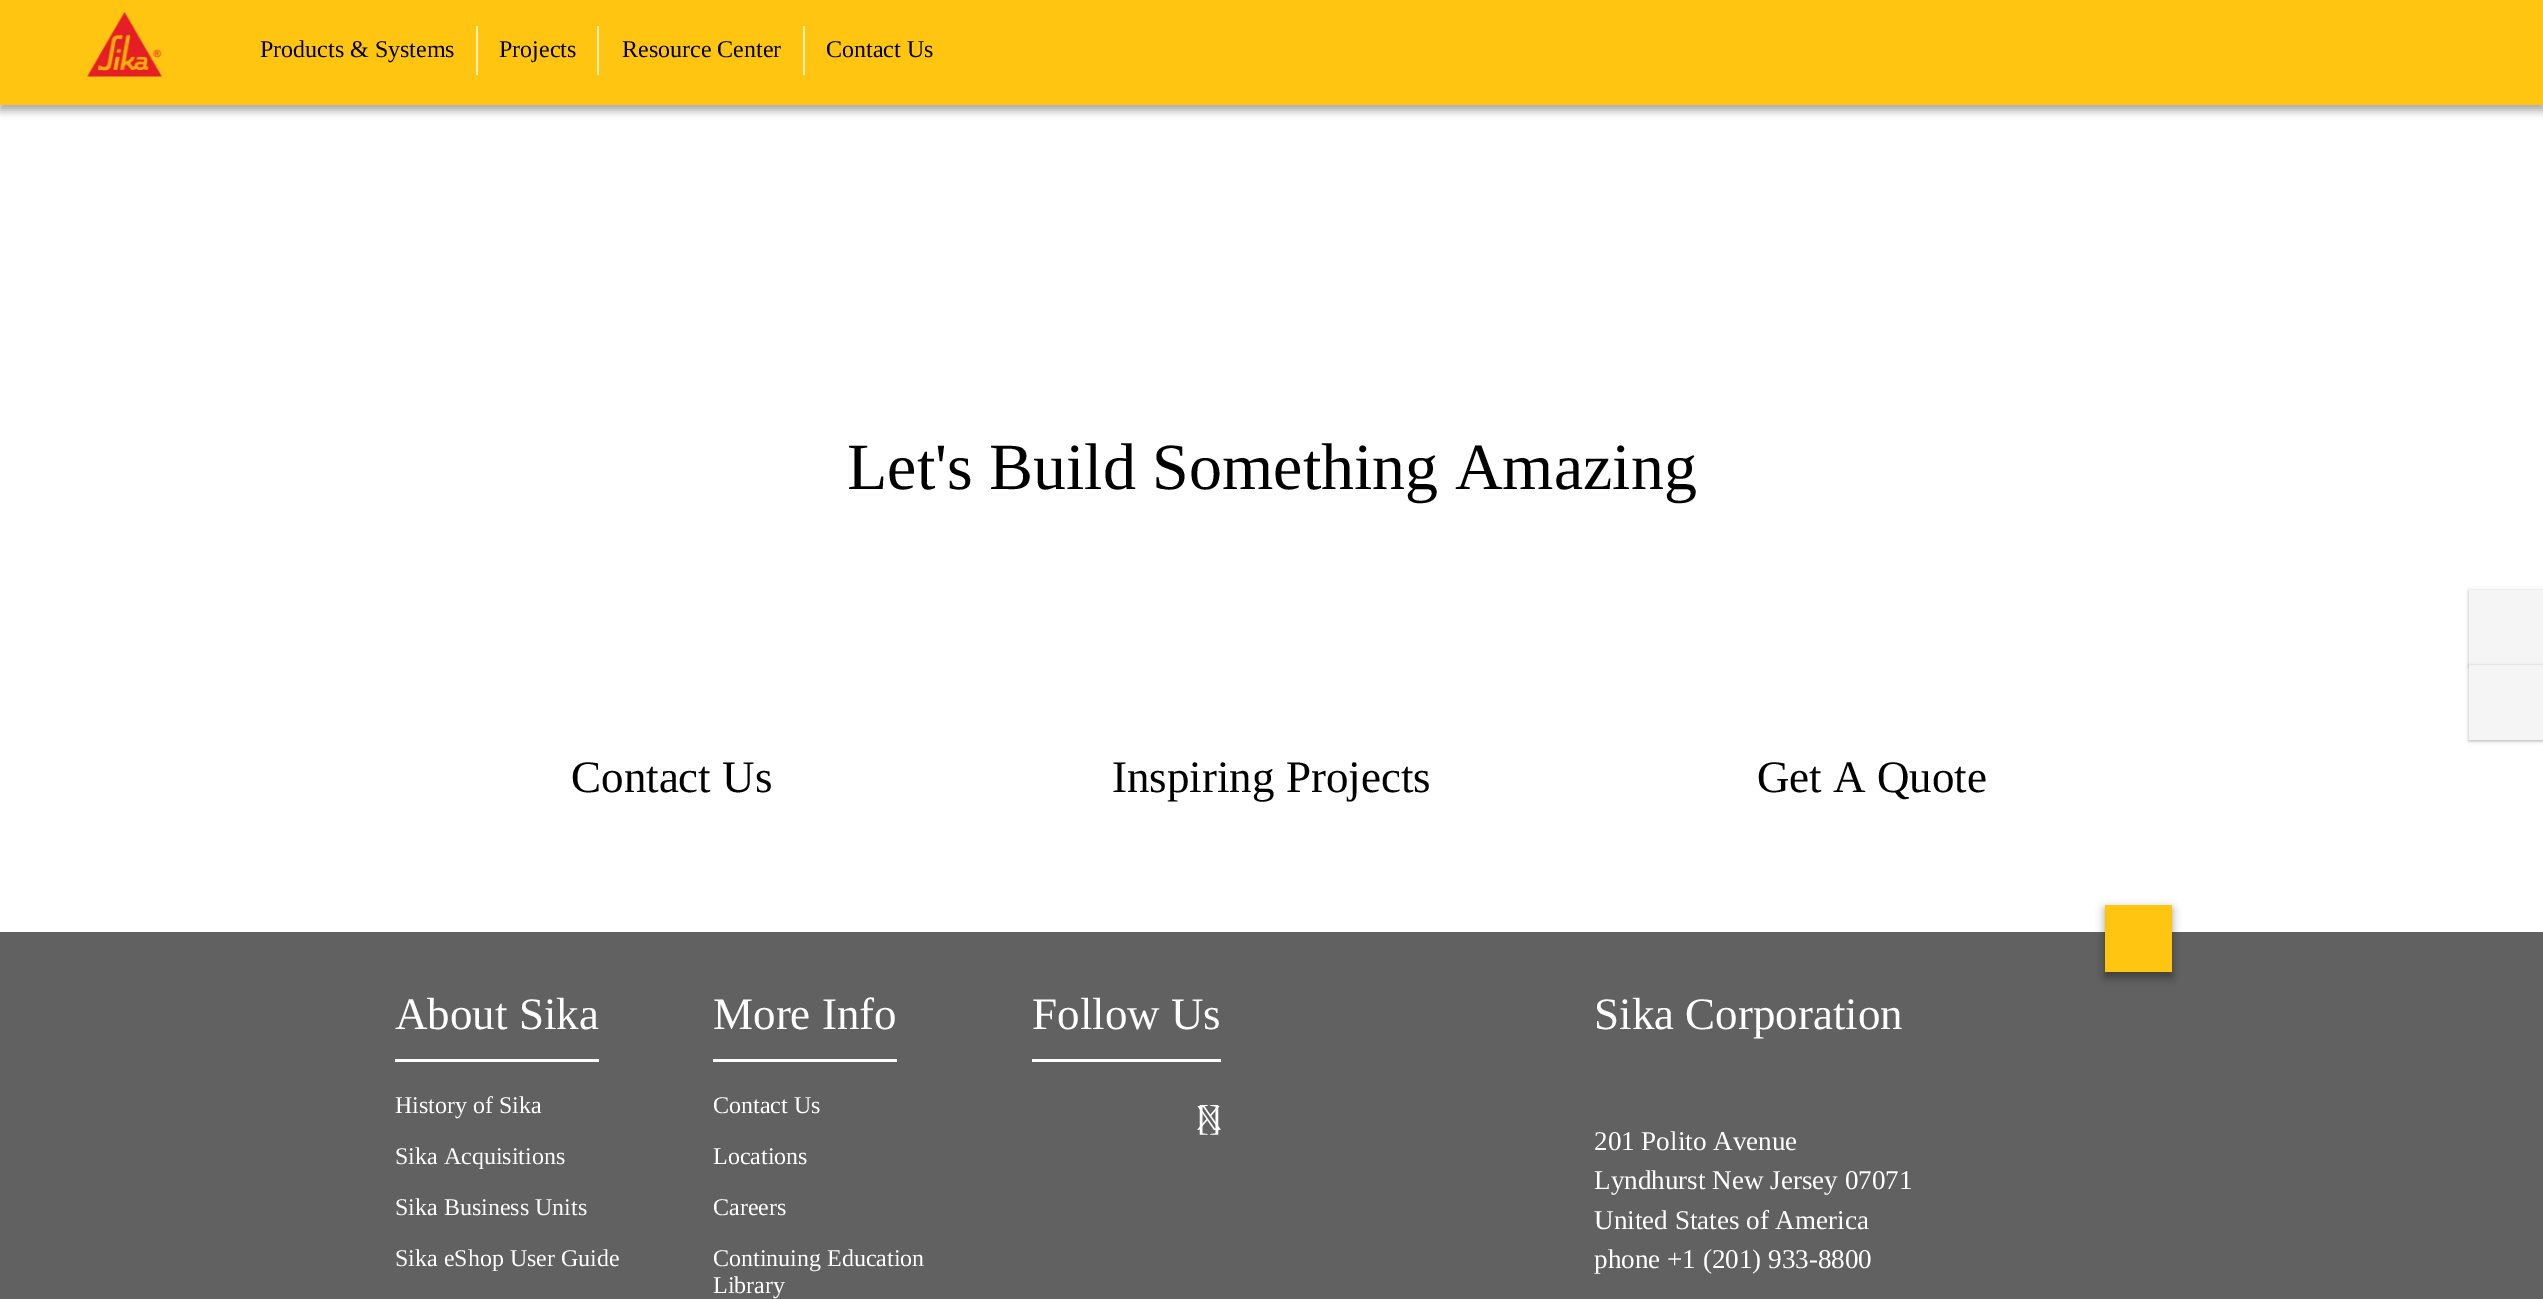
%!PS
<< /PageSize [2543 1299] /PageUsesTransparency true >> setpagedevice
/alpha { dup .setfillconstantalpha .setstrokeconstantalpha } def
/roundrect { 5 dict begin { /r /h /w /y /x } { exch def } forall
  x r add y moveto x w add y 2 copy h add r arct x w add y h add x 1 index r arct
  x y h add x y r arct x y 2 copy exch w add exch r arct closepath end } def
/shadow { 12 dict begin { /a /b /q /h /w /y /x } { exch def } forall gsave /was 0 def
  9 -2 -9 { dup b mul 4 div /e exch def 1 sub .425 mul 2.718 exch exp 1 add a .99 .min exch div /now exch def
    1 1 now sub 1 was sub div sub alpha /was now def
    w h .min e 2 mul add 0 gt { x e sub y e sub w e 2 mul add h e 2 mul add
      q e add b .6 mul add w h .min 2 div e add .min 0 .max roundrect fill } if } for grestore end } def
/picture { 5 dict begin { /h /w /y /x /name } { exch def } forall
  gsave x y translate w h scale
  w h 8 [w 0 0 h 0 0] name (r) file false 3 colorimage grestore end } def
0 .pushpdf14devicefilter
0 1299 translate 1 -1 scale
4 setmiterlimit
1 setgray
0 0 2543 1299 rectfill
0 setgray
0 5 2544 105 0 4.5 0.23 shadow
0 5 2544 105 0 4.5 0.16 shadow
1 0.773 0.063 setrgbcolor
0 0 2543 105 rectfill
(img1.rgb) 87 12 76 65 picture
/LiberationSerif-Regular [24 0 0 -24 0 0] selectfont
0 setgray
260 57 moveto (Products & Systems) show
1 0.933 0.718 setrgbcolor
476 26 2 49 rectfill
0 setgray
499 57 moveto (Projects) show
1 0.933 0.718 setrgbcolor
597 26 2 49 rectfill
0 setgray
622 57 moveto (Resource Center) show
1 0.933 0.718 setrgbcolor
803 26 2 49 rectfill
0 setgray
826 57 moveto (Contact Us) show
2469 591 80 75 0 2 0.1 shadow
2469 591 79 75 0 1.5 0.2 shadow
0.961 setgray
2469 590 74 75 rectfill
0 setgray
2469 666 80 75 0 2 0.1 shadow
2469 666 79 75 0 1.5 0.2 shadow
0.961 setgray
2469 665 74 75 rectfill
/LiberationSerif-Regular [66 0 0 -66 0 0] selectfont
0 setgray
847 489 moveto (Let's Build Something Amazing) show
/LiberationSerif-Regular [45 0 0 -45 0 0] selectfont
571 792 moveto (Contact Us) show
1112 792 moveto (Inspiring Projects) show
1757 792 moveto (Get A Quote) show
0.38 setgray
0 932 2543 367 rectfill
0 setgray
2105 909 67 68 0 4.5 0.23 shadow
2105 909 67 68 0 4.5 0.16 shadow
1 0.773 0.063 setrgbcolor
2105 905 67 67 rectfill
1 setgray
395 1059 204 3 rectfill
395 1029 moveto (About Sika) show
/LiberationSerif-Regular [24 0 0 -24 0 0] selectfont
395 1113 moveto (History of Sika) show
395 1164 moveto (Sika Acquisitions) show
395 1215 moveto (Sika Business Units) show
395 1266 moveto (Sika eShop User Guide) show
713 1059 184 3 rectfill
/LiberationSerif-Regular [45 0 0 -45 0 0] selectfont
713 1029 moveto (More Info) show
/LiberationSerif-Regular [24 0 0 -24 0 0] selectfont
713 1113 moveto (Contact Us) show
713 1164 moveto (Locations) show
713 1215 moveto (Careers) show
713 1266 moveto (Continuing Education) show
713 1293 moveto (Library) show
1032 1059 189 3 rectfill
/LiberationSerif-Regular [45 0 0 -45 0 0] selectfont
1032 1029 moveto (Follow Us) show
(img2.rgb) 1197 1106 24 24 picture
/LiberationSerif-Regular [36 0 0 -36 0 0] selectfont
1197 1130 moveto ([]) show
/LiberationSerif-Regular [45 0 0 -45 0 0] selectfont
1594 1029 moveto (Sika Corporation) show
/LiberationSerif-Regular [27.1 0 0 -27.1 0 0] selectfont
1594 1150 moveto (201 Polito Avenue) show
1594 1189 moveto (Lyndhurst New Jersey 07071) show
1594 1229 moveto (United States of America) show
1594 1268 moveto (phone +1 \(201\) 933-8800) show
.poppdf14devicefilter showpage
